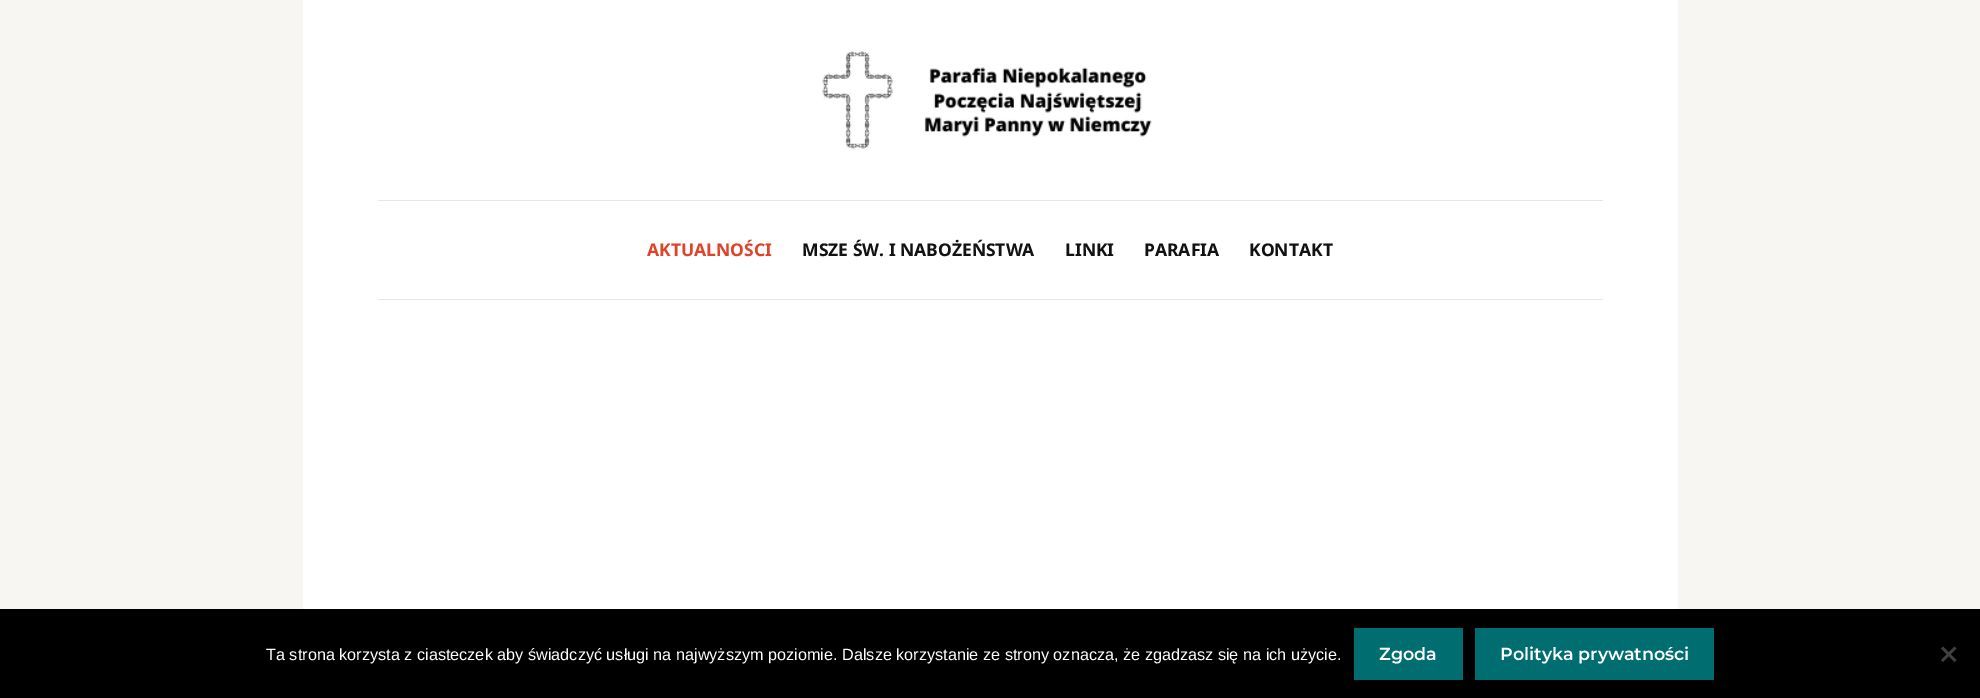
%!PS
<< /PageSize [1980 698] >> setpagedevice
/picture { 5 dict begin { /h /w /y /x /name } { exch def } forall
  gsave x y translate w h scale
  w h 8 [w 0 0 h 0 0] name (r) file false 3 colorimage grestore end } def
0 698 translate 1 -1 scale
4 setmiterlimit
0.973 0.965 0.949 setrgbcolor
0 0 1980 698 rectfill
1 setgray
303 0 1375 609 rectfill
(img1.rgb) 822 51 330 98 picture
0.902 setgray
378 200 1225 1 rectfill
378 299 1225 1 rectfill
/NotoSans-Bold [17.5 0 0 -17.5 0 0] selectfont
0.875 0.267 0.165 setrgbcolor
647 256 moveto (AKTUALNOŚCI) show
0.071 setgray
802 256 moveto (MSZE ŚW. I NABOŻEŃSTWA) show
1065 256 moveto (LINKI) show
1144 256 moveto (PARAFIA) show
1249 256 moveto (KONTAKT) show
0 setgray
0 609 1980 89 rectfill
/LiberationSans-Regular [16.25 0 0 -16.25 0 0] selectfont
1 setgray
266 660 moveto (Ta strona korzysta z ciasteczek aby świadczyć usługi na najwyższym poziomie. Dalsze korzystanie ze strony oznacza, że zgadzasz się na ich użycie.) show
0 0.431 0.439 setrgbcolor
1354 628 109 52 rectfill
/Montserrat-SemiBold [17.5 0 0 -17.5 0 0] selectfont
1 setgray
1379 660 moveto (Zgoda) show
0 0.431 0.439 setrgbcolor
1475 628 239 52 rectfill
1 setgray
1500 660 moveto (Polityka prywatności) show
0.251 setgray
newpath 1954.5 646.5 moveto 1956.5 648.5 lineto 1943 662 lineto 1941 660 lineto closepath fill
newpath 1941 648.5 moveto 1943 646.5 lineto 1956.5 660 lineto 1954.5 662 lineto closepath fill
showpage
